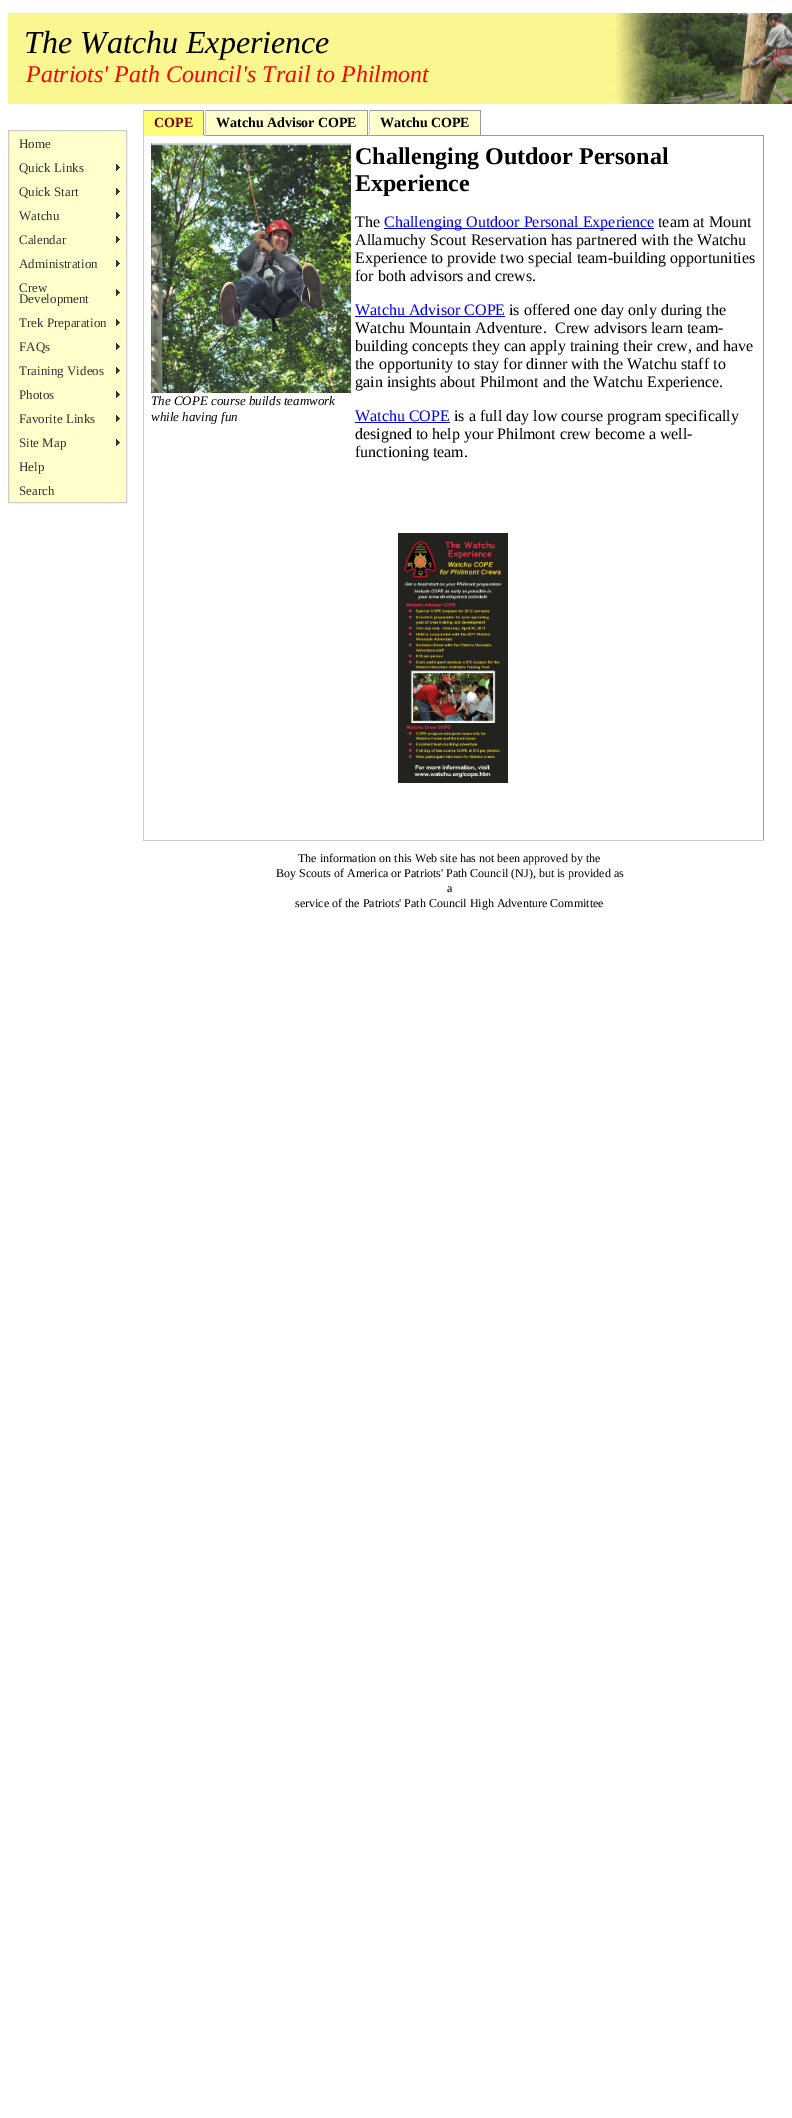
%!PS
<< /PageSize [792 2118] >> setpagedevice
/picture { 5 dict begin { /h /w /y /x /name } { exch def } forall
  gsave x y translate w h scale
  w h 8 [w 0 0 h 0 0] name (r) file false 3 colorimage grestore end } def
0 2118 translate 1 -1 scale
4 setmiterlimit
1 setgray
0 0 792 2118 rectfill
(img1.rgb) 8 13 784 91 picture
/LiberationSerif-Italic [32 0 0 -32 0 0] selectfont
0 setgray
24 53 moveto (The Watchu Experience) show
/LiberationSerif-Italic [24 0 0 -24 0 0] selectfont
1 0 0 setrgbcolor
26 82 moveto (Patriots' Path Council's Trail to Philmont) show
1 1 0.8 setrgbcolor
newpath 8.5 130.5 moveto 126.5 130.5 lineto 126.5 502.5 lineto 8.5 502.5 lineto closepath gsave fill grestore
0.8 setgray
stroke
/LiberationSerif-Regular [13 0 0 -13 0 0] selectfont
0.2 setgray
19 148 moveto (Home) show
(img2.rgb) 116 164 4 7 picture
19 172 moveto (Quick Links) show
(img2.rgb) 116 188 4 7 picture
19 196 moveto (Quick Start) show
(img2.rgb) 116 212 4 7 picture
19 220 moveto (Watchu) show
(img2.rgb) 116 236 4 7 picture
19 244 moveto (Calendar) show
(img2.rgb) 116 260 4 7 picture
19 268 moveto (Administration) show
(img2.rgb) 116 289 4 7 picture
19 292 moveto (Crew) show
19 303 moveto (Development) show
(img2.rgb) 116 319 4 7 picture
19 327 moveto (Trek Preparation) show
(img2.rgb) 116 343 4 7 picture
19 351 moveto (FAQs) show
(img2.rgb) 116 367 4 7 picture
19 375 moveto (Training Videos) show
(img2.rgb) 116 391 4 7 picture
19 399 moveto (Photos) show
(img2.rgb) 116 415 4 7 picture
19 423 moveto (Favorite Links) show
(img2.rgb) 116 439 4 7 picture
19 447 moveto (Site Map) show
19 471 moveto (Help) show
19 495 moveto (Search) show
1 1 0.467 setrgbcolor
144 111 59 24 rectfill
0.6 setgray
143 110 61 1 rectfill
203 110 1 26 rectfill
204 135 560 1 rectfill
763 135 1 706 rectfill
0.8 setgray
143 840 621 1 rectfill
143 135 1 706 rectfill
0.933 setgray
143 135 61 1 rectfill
0.8 setgray
143 110 1 26 rectfill
/LiberationSerif-Bold [14 0 0 -14 0 0] selectfont
0.467 0 0 setrgbcolor
154 127 moveto (COPE) show
1 1 0.8 setrgbcolor
206 111 161 24 rectfill
0.6 setgray
205 110 163 1 rectfill
367 110 1 26 rectfill
0.8 setgray
205 110 1 26 rectfill
0 setgray
216 127 moveto (Watchu Advisor COPE) show
1 1 0.8 setrgbcolor
370 111 110 24 rectfill
0.6 setgray
369 110 112 1 rectfill
480 110 1 26 rectfill
0.8 setgray
369 110 1 26 rectfill
0 setgray
380 127 moveto (Watchu COPE) show
(img3.rgb) 151 143 200 250 picture
/LiberationSerif-Italic [13 0 0 -13 0 0] selectfont
151 405 moveto (The COPE course builds teamwork) show
151 421 moveto (while having fun) show
/LiberationSerif-Bold [24 0 0 -24 0 0] selectfont
355 164 moveto (Challenging Outdoor Personal) show
355 191 moveto (Experience) show
/LiberationSerif-Regular [16 0 0 -16 0 0] selectfont
355 227 moveto (The) show
0 0 0.933 setrgbcolor
384 228 270 1 rectfill
384 227 moveto (Challenging Outdoor Personal Experience) show
0 setgray
658 227 moveto (team at Mount) show
355 245 moveto (Allamuchy Scout Reservation has partnered with the Watchu) show
355 263 moveto (Experience to provide two special team-building opportunities) show
355 281 moveto (for both advisors and crews.) show
0 0 0.933 setrgbcolor
355 315 moveto (Watchu Advisor COPE) show
355 316 150 1 rectfill
0 setgray
509 315 moveto (is offered one day only during the) show
355 333 moveto (Watchu Mountain Adventure.) show
555 333 moveto (Crew advisors learn team-) show
355 351 moveto (building concepts they can apply training their crew, and have) show
355 369 moveto (the opportunity to stay for dinner with the Watchu staff to) show
355 387 moveto (gain insights about Philmont and the Watchu Experience.) show
0 0 0.933 setrgbcolor
355 421 moveto (Watchu COPE) show
355 422 95 1 rectfill
0 setgray
454 421 moveto (is a full day low course program specifically) show
355 439 moveto (designed to help your Philmont crew become a well-) show
355 457 moveto (functioning team.) show
(img4.rgb) 398 533 110 250 picture
/LiberationSerif-Regular [12 0 0 -12 0 0] selectfont
298 862 moveto (The information on this Web site has not been approved by the) show
276 877 moveto (Boy Scouts of America or Patriots' Path Council \(NJ\), but is provided as) show
447 892 moveto (a) show
295 907 moveto (service of the Patriots' Path Council High Adventure Committee) show
showpage
